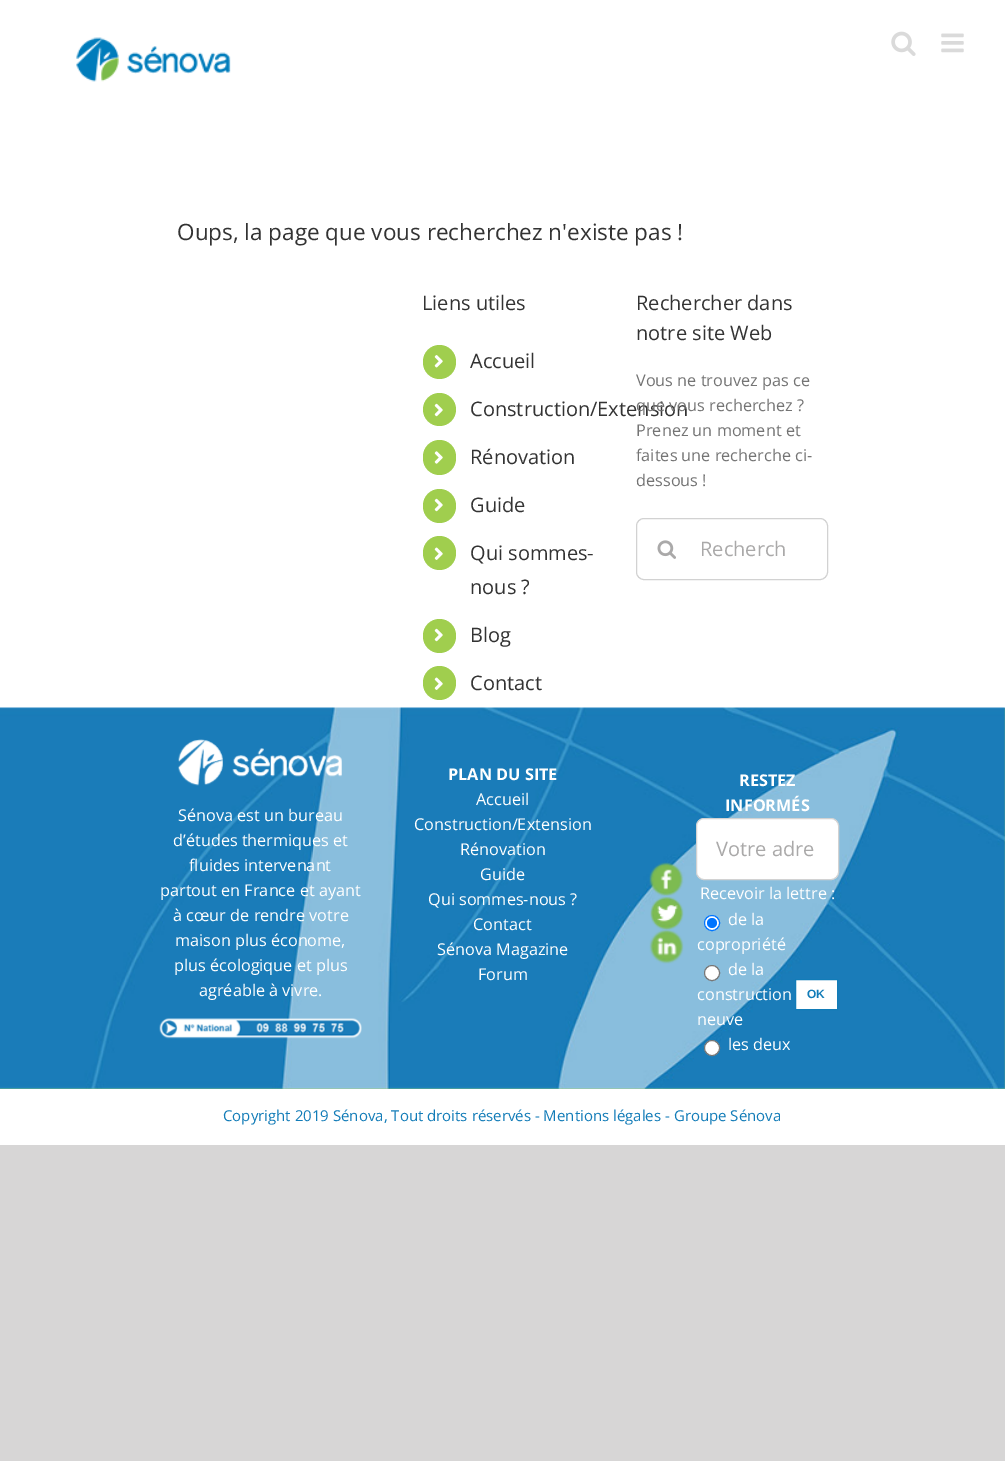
%!PS
<< /PageSize [1005 1461] >> setpagedevice
/roundrect { 5 dict begin { /r /h /w /y /x } { exch def } forall
  x r add y moveto x w add y 2 copy h add r arct x w add y h add x 1 index r arct
  x y h add x y r arct x y 2 copy exch w add exch r arct closepath end } def
/picture { 5 dict begin { /h /w /y /x /name } { exch def } forall
  gsave x y translate w h scale
  w h 8 [w 0 0 h 0 0] name (r) file false 3 colorimage grestore end } def
0 1461 translate 1 -1 scale
4 setmiterlimit
0.843 0.839 0.839 setrgbcolor
0 0 1005 1461 rectfill
1 setgray
0 0 1005 1145 rectfill
(img1.rgb) 76 37 155 45 picture
(img2.rgb) 891 31 25 25 picture
(img3.rgb) 941 33 23 20 picture
/OpenSans-Regular [22.5 0 0 -22.5 0 0] selectfont
0.2 setgray
177 240 moveto (Oups, la page que vous recherchez n'existe pas !) show
/OpenSans-Regular [20 0 0 -20 0 0] selectfont
422 310 moveto (Liens utiles) show
0.627 0.808 0.306 setrgbcolor
423 345 33 34 16.5 roundrect fill
(img4.rgb) 434 355 9 13 picture
0.2 setgray
470 368 moveto (Accueil) show
0.627 0.808 0.306 setrgbcolor
newpath 439.5 409.5 16.5 0 360 arc closepath fill
(img5.rgb) 434 403 9 14 picture
0.2 setgray
470 416 moveto (Construction/Extension) show
0.627 0.808 0.306 setrgbcolor
423 440 33 35 16.5 roundrect fill
(img6.rgb) 434 451 9 13 picture
0.2 setgray
470 464 moveto (Rénovation) show
0.627 0.808 0.306 setrgbcolor
423 489 33 34 16.5 roundrect fill
(img5.rgb) 434 498 9 14 picture
0.2 setgray
470 512 moveto (Guide) show
0.627 0.808 0.306 setrgbcolor
423 536 33 34 16.5 roundrect fill
(img7.rgb) 434 547 9 13 picture
0.2 setgray
470 560 moveto (Qui sommes-) show
470 594 moveto (nous ?) show
0.627 0.808 0.306 setrgbcolor
423 619 33 34 16.5 roundrect fill
(img5.rgb) 434 628 9 14 picture
0.2 setgray
470 642 moveto (Blog) show
0.627 0.808 0.306 setrgbcolor
423 666 33 34 16.5 roundrect fill
(img7.rgb) 434 677 9 13 picture
0.2 setgray
470 690 moveto (Contact) show
636 310 moveto (Rechercher dans) show
636 340 moveto (notre site Web) show
/OpenSans-Regular [16.25 0 0 -16.25 0 0] selectfont
0.455 setgray
636 386 moveto (Vous ne trouvez pas ce) show
636 411 moveto (que vous recherchez ?) show
636 436 moveto (Prenez un moment et) show
636 461 moveto (faites une recherche ci-) show
636 486 moveto (dessous !) show
0.824 setgray
636.5 518.5 191 61 7.5 roundrect stroke
(img8.rgb) 657 540 19 19 picture
/OpenSans-Regular [20 0 0 -20 0 0] selectfont
0.667 0.663 0.663 setrgbcolor
700 556 moveto (Recherch) show
0.627 0.808 0.306 setrgbcolor
0 708 1005 381 rectfill
(img9.rgb) 0 707 1005 382 picture
(img10.rgb) 178 739 164 47 picture
/OpenSans-Regular [16.25 0 0 -16.25 0 0] selectfont
1 setgray
178 821 moveto (Sénova est un bureau) show
173 846 moveto (d’études thermiques et) show
189 871 moveto (fluides intervenant) show
160 896 moveto (partout en France et ayant) show
173 921 moveto (à cœur de rendre votre) show
175 946 moveto (maison plus économe,) show
174 971 moveto (plus écologique et plus) show
199 996 moveto (agréable à vivre.) show
(img11.rgb) 159 1018 203 21 picture
/OpenSans-Bold [16.25 0 0 -16.25 0 0] selectfont
448 780 moveto (PLAN DU SITE) show
/OpenSans-Regular [16.25 0 0 -16.25 0 0] selectfont
476 805 moveto (Accueil) show
414 830 moveto (Construction/Extension) show
460 855 moveto (Rénovation) show
480 880 moveto (Guide) show
428 905 moveto (Qui sommes-nous ?) show
473 930 moveto (Contact) show
437 955 moveto (Sénova Magazine) show
478 980 moveto (Forum) show
(img12.rgb) 649 862 35 34 picture
(img13.rgb) 650 896 34 34 picture
(img14.rgb) 649 929 35 35 picture
/OpenSans-Bold [16.25 0 0 -16.25 0 0] selectfont
739 786 moveto (RESTEZ) show
725 811 moveto (INFORMÉS) show
696.5 818.5 142 61 7.5 roundrect gsave fill grestore
0.824 setgray
stroke
/OpenSans-Regular [20 0 0 -20 0 0] selectfont
0.667 0.663 0.663 setrgbcolor
716 856 moveto (Votre adre) show
/OpenSans-Regular [16.25 0 0 -16.25 0 0] selectfont
1 setgray
700 899 moveto (Recevoir la lettre :) show
newpath 712 923 7.5 0 360 arc closepath gsave fill grestore
0 0.459 1 setrgbcolor
stroke
newpath 712 923 5 0 360 arc closepath fill
1 setgray
728 925 moveto (de la) show
697 950 moveto (copropriété) show
newpath 712 973 7.5 0 360 arc closepath gsave fill grestore
0.463 setgray
stroke
1 setgray
728 975 moveto (de la) show
697 1000 moveto (construction) show
697 1025 moveto (neuve) show
newpath 712 1048 7.5 0 360 arc closepath gsave fill grestore
0.463 setgray
stroke
1 setgray
728 1050 moveto (les deux) show
newpath 795.5 979.5 moveto 837.5 979.5 lineto 837.5 1009.5 lineto 795.5 1009.5 lineto closepath gsave fill grestore
0.071 0.486 0.722 setrgbcolor
stroke
/LiberationSans-Bold [12 0 0 -12 0 0] selectfont
807 998 moveto (OK) show
/OpenSans-Regular [15 0 0 -15 0 0] selectfont
223 1121 moveto (Copyright 2019 Sénova, Tout droits réservés - Mentions légales - Groupe Sénova) show
showpage
